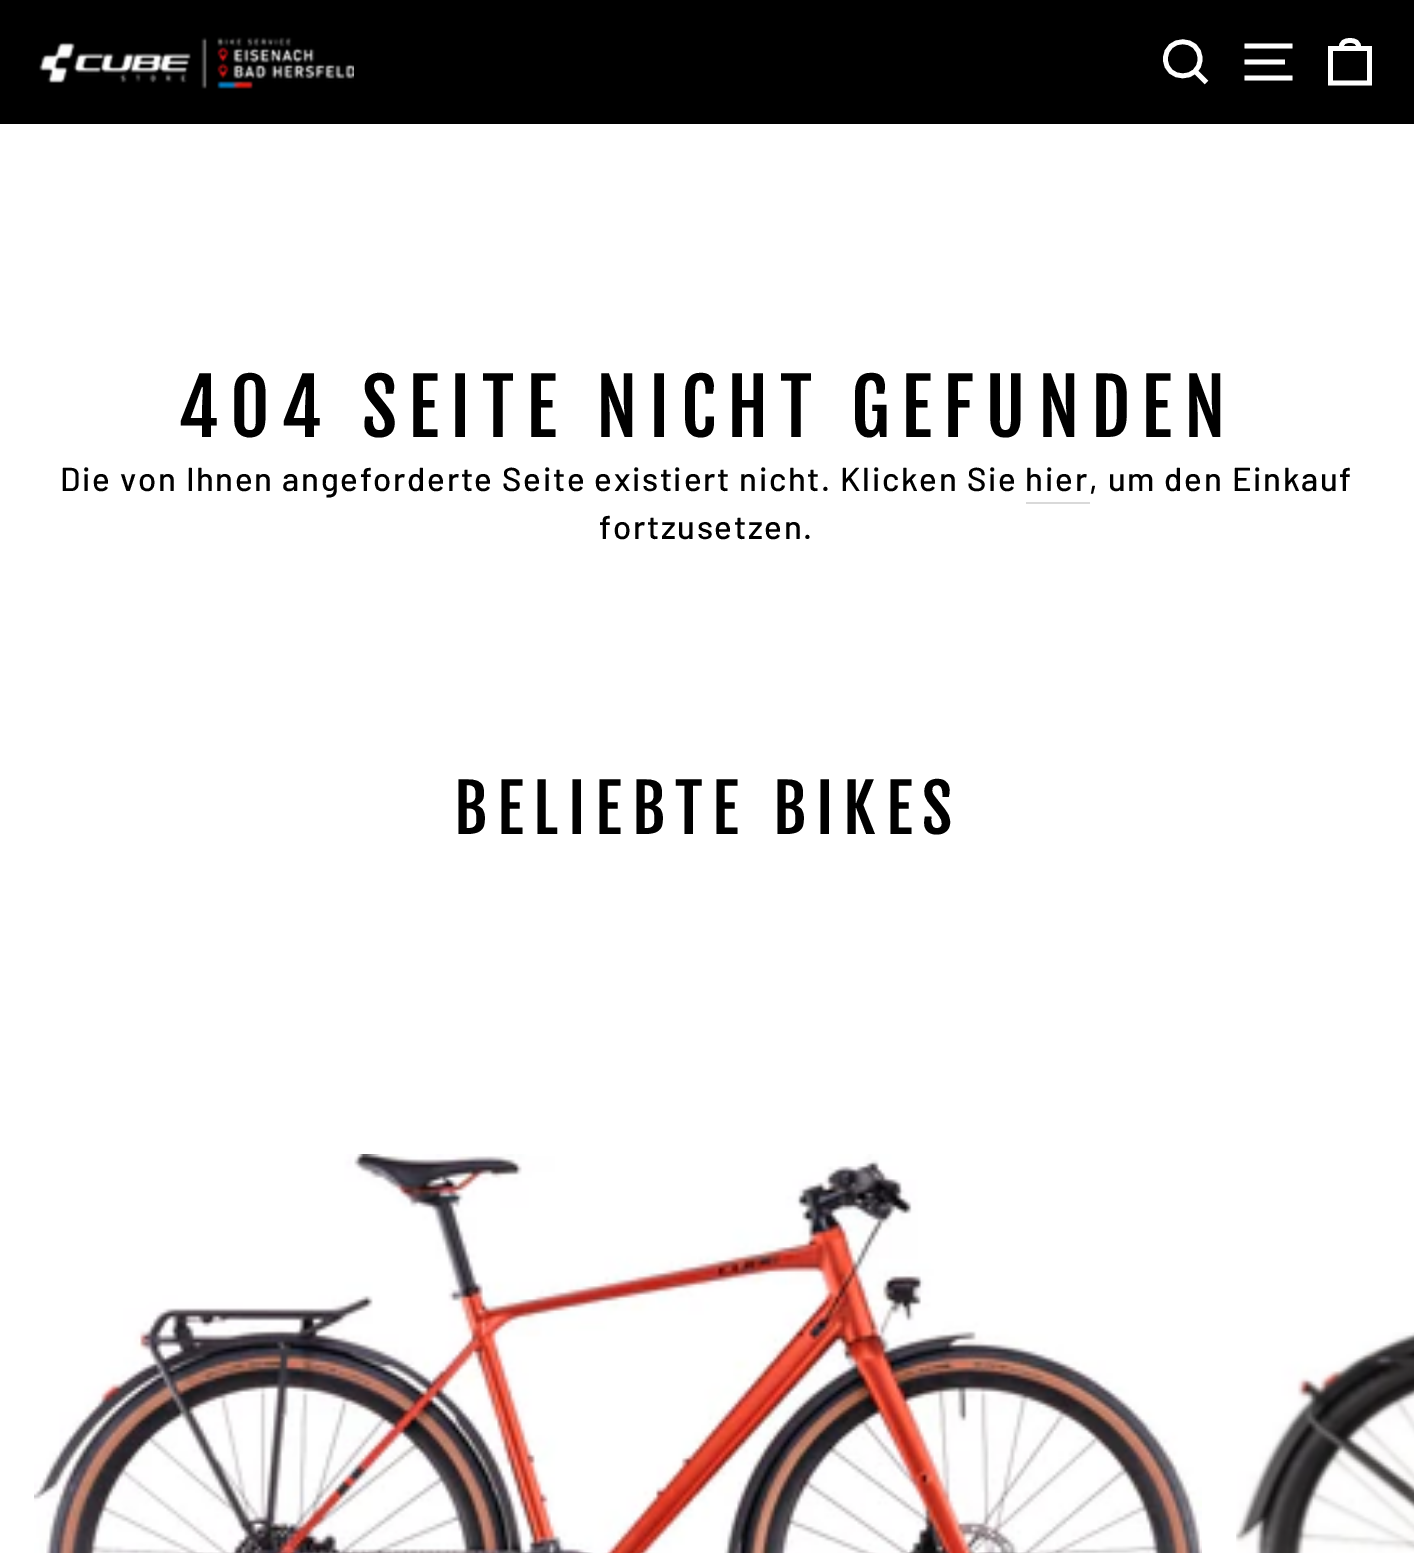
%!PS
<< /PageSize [1414 1553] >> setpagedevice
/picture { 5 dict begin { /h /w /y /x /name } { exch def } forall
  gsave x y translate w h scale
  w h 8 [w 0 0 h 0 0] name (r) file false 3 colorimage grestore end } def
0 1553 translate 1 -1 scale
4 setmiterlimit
1 setgray
0 0 1414 1553 rectfill
0 setgray
0 0 1414 124 rectfill
(img1.rgb) 39 37 315 52 picture
1 setgray
4.7 setlinewidth
newpath 1200 59 moveto 1200 81.5 1165.5 81.5 1165.5 59 curveto 1165.5 36 1200 36 1200 59 curveto closepath 1206.5 82.5 moveto 1195.5 71.5 lineto stroke
newpath 1244.5 46 moveto 1292.5 46 lineto 1244.5 62 moveto 1285 62 lineto 1244.5 78 moveto 1292.5 78 lineto stroke
newpath 1330.5 48.5 moveto 1369.5 48.5 lineto 1369.5 83 lineto 1330.5 83 lineto closepath 1341 49 moveto 1341 42 1345 40.5 1350 40.5 curveto 1355 40.5 1359 42 1359 49 curveto stroke
/FjallaOne-Regular [76.5 0 0 -76.5 0 0] selectfont
0 setgray
178 437 moveto 11.5 0 (404 SEITE NICHT GEFUNDEN) ashow
/Barlow-Medium [33.1 0 0 -33.1 0 0] selectfont
60 491 moveto 1.65 0 (Die von Ihnen angeforderte Seite existiert nicht. Klicken Sie hier) ashow
1089 491 moveto 1.65 0 (, um den Einkauf) ashow
0.851 setgray
1026 502 64 2 rectfill
0 setgray
599 539 moveto 1.65 0 (fortzusetzen.) ashow
/FjallaOne-Regular [65.75 0 0 -65.75 0 0] selectfont
454 834 moveto 9.9 0 (BELIEBTE BIKES) ashow
(img2.rgb) 34 1154 1168 399 picture
(img3.rgb) 1236 1332 178 221 picture
showpage
